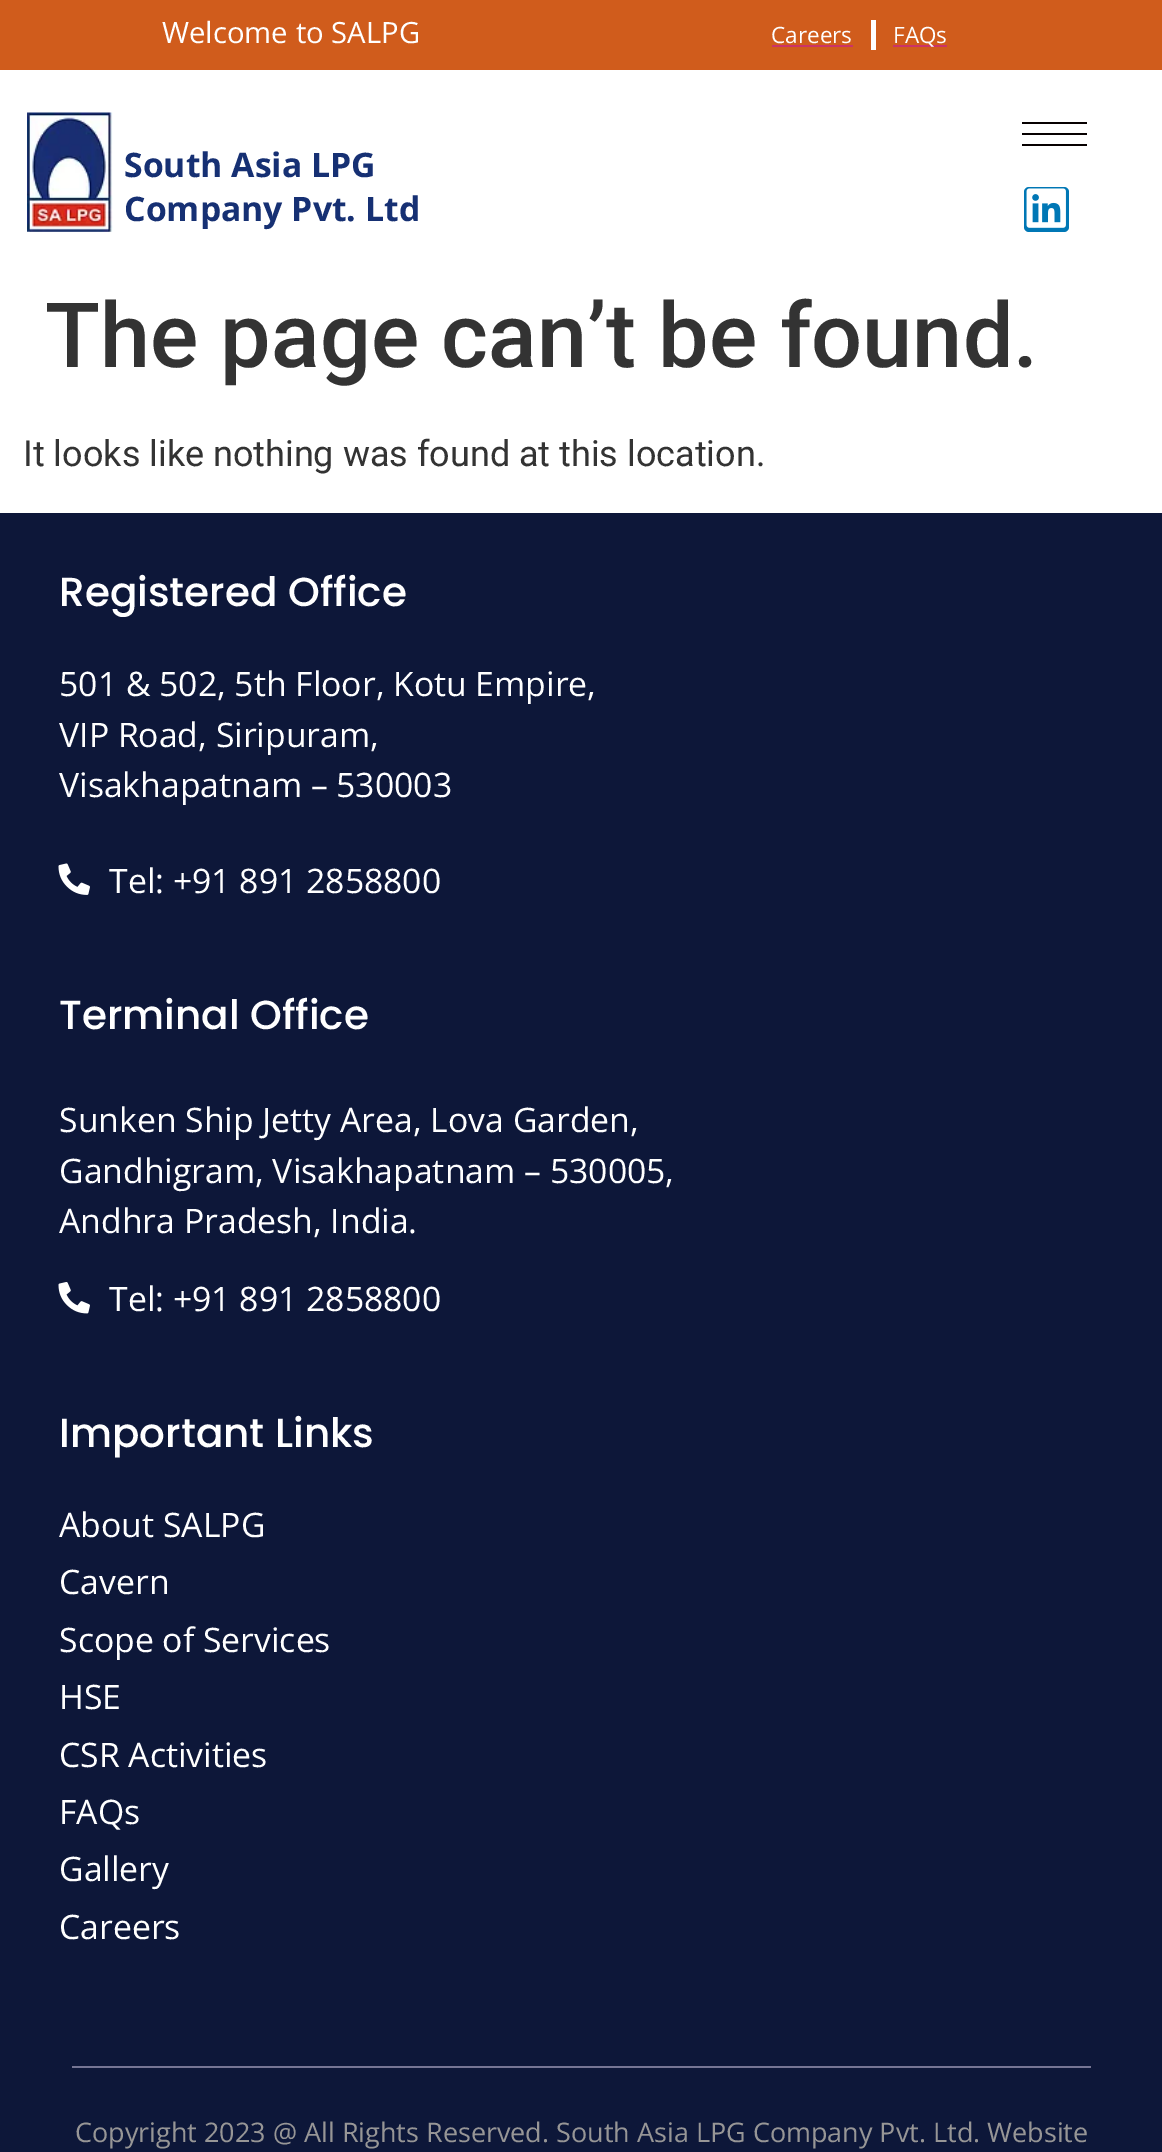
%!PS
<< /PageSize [1162 2152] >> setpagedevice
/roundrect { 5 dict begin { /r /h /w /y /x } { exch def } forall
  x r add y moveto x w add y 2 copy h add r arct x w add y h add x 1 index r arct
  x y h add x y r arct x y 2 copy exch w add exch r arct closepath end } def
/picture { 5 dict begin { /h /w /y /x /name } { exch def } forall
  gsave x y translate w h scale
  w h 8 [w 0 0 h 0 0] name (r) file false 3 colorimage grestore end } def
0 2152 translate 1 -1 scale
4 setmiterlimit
1 setgray
0 0 1162 2152 rectfill
0.816 0.361 0.11 setrgbcolor
0 0 1162 70 rectfill
/OpenSans-Regular [29.25 0 0 -29.25 0 0] selectfont
1 setgray
162 43 moveto (Welcome to SALPG) show
/OpenSans-Regular [22.5 0 0 -22.5 0 0] selectfont
771 43 moveto (Careers) show
0.8 0.2 0.4 setrgbcolor
772 45 81 2 rectfill
1 setgray
871 20 5 30 rectfill
0.8 0.2 0.4 setrgbcolor
893 45 54 2 rectfill
1 setgray
893 43 moveto (FAQs) show
(img1.rgb) 27 112 86 120 picture
/OpenSans-Bold [33.75 0 0 -33.75 0 0] selectfont
0.086 0.188 0.451 setrgbcolor
124 177 moveto (South Asia LPG) show
124 221 moveto (Company Pvt. Ltd) show
0.024 0 0 setrgbcolor
1022 122 65 2 rectfill
1022 133 65 2 rectfill
1022 144 65 2 rectfill
0 0.467 0.71 setrgbcolor
1024 187 45 45 5 roundrect fill
(img2.rgb) 1026 188 40 40 picture
/Roboto-Medium [90 0 0 -90 0 0] selectfont
0.2 setgray
45 367 moveto (The page can’t be found.) show
/Roboto-Regular [36 0 0 -36 0 0] selectfont
23 466 moveto (It looks like nothing was found at this location.) show
0.051 0.09 0.224 setrgbcolor
0 513 1162 1639 rectfill
/Poppins-Medium [40.5 0 0 -40.5 0 0] selectfont
1 setgray
59 606 moveto (Registered Office) show
/OpenSans-Regular [33.75 0 0 -33.75 0 0] selectfont
59 696 moveto (501 & 502, 5th Floor, Kotu Empire,) show
59 747 moveto (VIP Road, Siripuram,) show
59 797 moveto (Visakhapatnam – 530003) show
(img3.rgb) 58 863 32 32 picture
109 893 moveto (Tel: +91 891 2858800) show
/Poppins-Medium [40.5 0 0 -40.5 0 0] selectfont
59 1029 moveto (Terminal Office) show
/OpenSans-Regular [33.75 0 0 -33.75 0 0] selectfont
59 1132 moveto (Sunken Ship Jetty Area, Lova Garden,) show
59 1183 moveto (Gandhigram, Visakhapatnam – 530005,) show
59 1233 moveto (Andhra Pradesh, India.) show
(img4.rgb) 58 1282 32 32 picture
109 1311 moveto (Tel: +91 891 2858800) show
/Poppins-Medium [40.5 0 0 -40.5 0 0] selectfont
59 1447 moveto (Important Links) show
/OpenSans-Regular [33.75 0 0 -33.75 0 0] selectfont
59 1537 moveto (About SALPG) show
59 1594 moveto (Cavern) show
59 1652 moveto (Scope of Services) show
59 1709 moveto (HSE) show
59 1767 moveto (CSR Activities) show
59 1824 moveto (FAQs) show
59 1881 moveto (Gallery) show
59 1939 moveto (Careers) show
0.459 0.459 0.58 setrgbcolor
72 2066 1019 2 rectfill
/OpenSans-Regular [27 0 0 -27 0 0] selectfont
0.592 0.588 0.588 setrgbcolor
75 2142 moveto (Copyright 2023 @ All Rights Reserved. South Asia LPG Company Pvt. Ltd. Website) show
showpage
